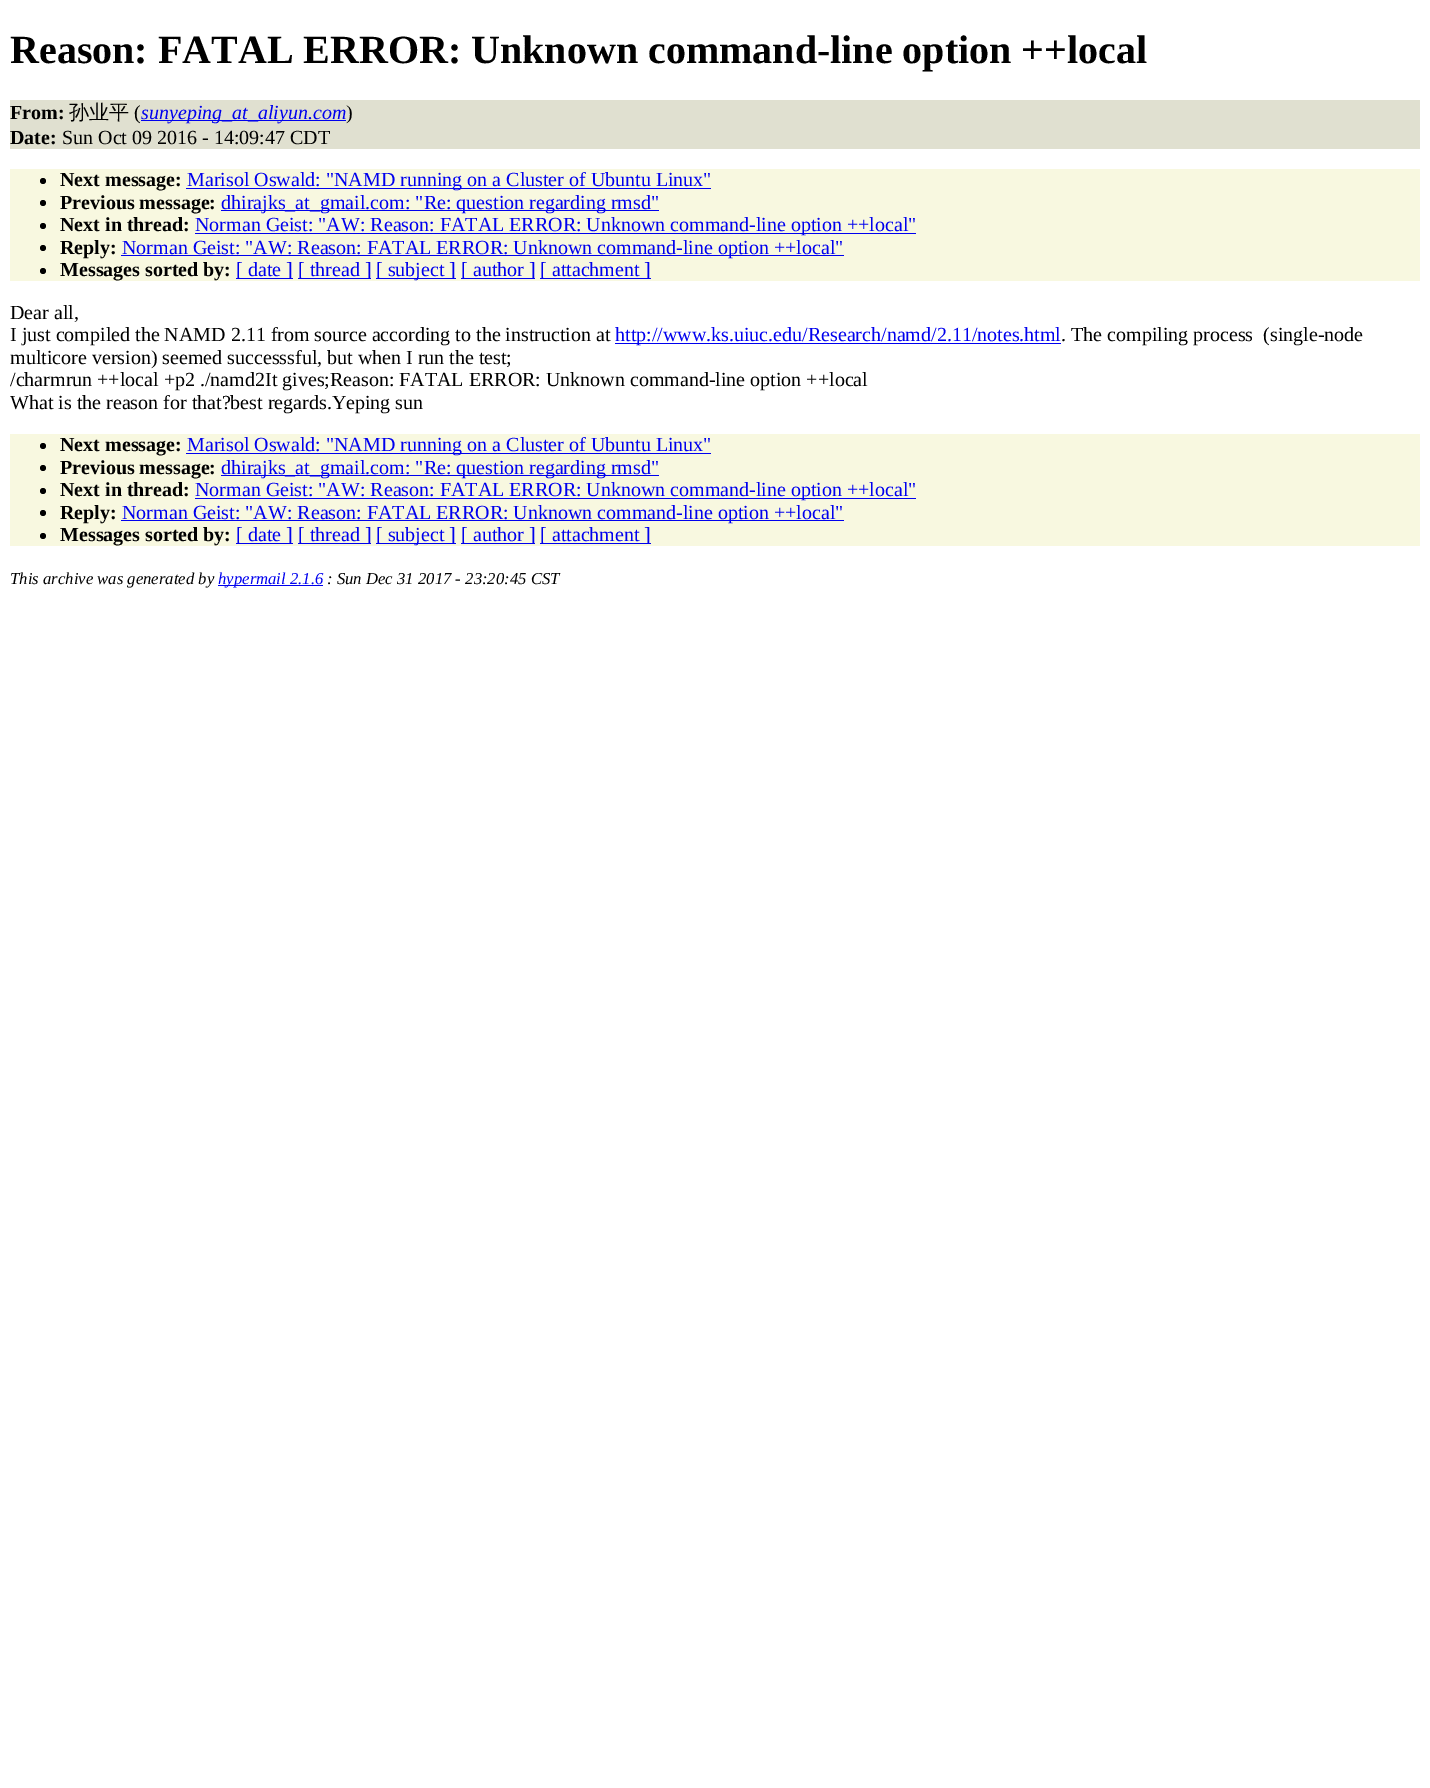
%!PS
<< /PageSize [1430 1788] >> setpagedevice
0 1788 translate 1 -1 scale
4 setmiterlimit
1 setgray
0 0 1430 1788 rectfill
/LiberationSerif-Bold [40 0 0 -40 0 0] selectfont
0 setgray
10 63 moveto (Reason: FATAL ERROR: Unknown command-line option ++local) show
0.878 0.878 0.816 setrgbcolor
10 100 1410 49 rectfill
/LiberationSerif-Bold [20 0 0 -20 0 0] selectfont
0 setgray
10 119 moveto (From:) show
/WenQuanYiZenHei-Medium [20 0 0 -20 0 0] selectfont
69 119 moveto (孙业平) show
/LiberationSerif-Regular [20 0 0 -20 0 0] selectfont
134 119 moveto (\() show
0 0 0.933 setrgbcolor
141 120 205 1 rectfill
/LiberationSerif-Italic [20 0 0 -20 0 0] selectfont
141 119 moveto (sunyeping_at_aliyun.com) show
/LiberationSerif-Regular [20 0 0 -20 0 0] selectfont
0 setgray
346 119 moveto (\)) show
/LiberationSerif-Bold [20 0 0 -20 0 0] selectfont
10 144 moveto (Date:) show
/LiberationSerif-Regular [20 0 0 -20 0 0] selectfont
62 144 moveto (Sun Oct 09 2016 - 14:09:47 CDT) show
0.973 0.973 0.878 setrgbcolor
10 169 1410 112 rectfill
0 setgray
newpath 43 181 3 0 360 arc closepath fill
/LiberationSerif-Bold [20 0 0 -20 0 0] selectfont
60 186 moveto (Next message:) show
0 0 0.933 setrgbcolor
186 188 525 1 rectfill
/LiberationSerif-Regular [20 0 0 -20 0 0] selectfont
187 186 moveto (Marisol Oswald: "NAMD running on a Cluster of Ubuntu Linux") show
0 setgray
newpath 43 203 3 0 360 arc closepath fill
/LiberationSerif-Bold [20 0 0 -20 0 0] selectfont
60 209 moveto (Previous message:) show
0 0 0.933 setrgbcolor
221 210 438 1 rectfill
/LiberationSerif-Regular [20 0 0 -20 0 0] selectfont
221 209 moveto (dhirajks_at_gmail.com: "Re: question regarding rmsd") show
0 setgray
newpath 43 226 3 0 360 arc closepath fill
/LiberationSerif-Bold [20 0 0 -20 0 0] selectfont
60 231 moveto (Next in thread:) show
0 0 0.933 setrgbcolor
195 233 721 1 rectfill
/LiberationSerif-Regular [20 0 0 -20 0 0] selectfont
195 231 moveto (Norman Geist: "AW: Reason: FATAL ERROR: Unknown command-line option ++local") show
0 setgray
newpath 43 248 3 0 360 arc closepath fill
/LiberationSerif-Bold [20 0 0 -20 0 0] selectfont
60 254 moveto (Reply:) show
0 0 0.933 setrgbcolor
121 255 723 1 rectfill
/LiberationSerif-Regular [20 0 0 -20 0 0] selectfont
122 254 moveto (Norman Geist: "AW: Reason: FATAL ERROR: Unknown command-line option ++local") show
0 setgray
newpath 43 271 3 0 360 arc closepath fill
/LiberationSerif-Bold [20 0 0 -20 0 0] selectfont
60 276 moveto (Messages sorted by:) show
0 0 0.933 setrgbcolor
236 278 57 1 rectfill
/LiberationSerif-Regular [20 0 0 -20 0 0] selectfont
236 276 moveto ([ date ]) show
298 278 73 1 rectfill
298 276 moveto ([ thread ]) show
376 278 80 1 rectfill
376 276 moveto ([ subject ]) show
461 278 74 1 rectfill
461 276 moveto ([ author ]) show
540 278 111 1 rectfill
540 276 moveto ([ attachment ]) show
0 setgray
10 319 moveto (Dear all,) show
10 341 moveto (I just compiled the NAMD 2.11 from source according to the instruction at) show
0 0 0.933 setrgbcolor
615 343 446 1 rectfill
615 341 moveto (http://www.ks.uiuc.edu/Research/namd/2.11/notes.html) show
0 setgray
1061 341 moveto (. The compiling process  \(single-node) show
10 364 moveto (multicore version\) seemed successsful, but when I run the test;) show
10 386 moveto (/charmrun ++local +p2 ./namd2It gives;Reason: FATAL ERROR: Unknown command-line option ++local) show
10 409 moveto (What is the reason for that?best regards.Yeping sun) show
0.973 0.973 0.878 setrgbcolor
10 434 1410 112 rectfill
0 setgray
newpath 43 446 3 0 360 arc closepath fill
/LiberationSerif-Bold [20 0 0 -20 0 0] selectfont
60 451 moveto (Next message:) show
0 0 0.933 setrgbcolor
186 453 525 1 rectfill
/LiberationSerif-Regular [20 0 0 -20 0 0] selectfont
187 451 moveto (Marisol Oswald: "NAMD running on a Cluster of Ubuntu Linux") show
0 setgray
newpath 43 468 3 0 360 arc closepath fill
/LiberationSerif-Bold [20 0 0 -20 0 0] selectfont
60 474 moveto (Previous message:) show
0 0 0.933 setrgbcolor
221 475 438 1 rectfill
/LiberationSerif-Regular [20 0 0 -20 0 0] selectfont
221 474 moveto (dhirajks_at_gmail.com: "Re: question regarding rmsd") show
0 setgray
newpath 43 491 3 0 360 arc closepath fill
/LiberationSerif-Bold [20 0 0 -20 0 0] selectfont
60 496 moveto (Next in thread:) show
0 0 0.933 setrgbcolor
195 498 721 1 rectfill
/LiberationSerif-Regular [20 0 0 -20 0 0] selectfont
195 496 moveto (Norman Geist: "AW: Reason: FATAL ERROR: Unknown command-line option ++local") show
0 setgray
newpath 43 513 3 0 360 arc closepath fill
/LiberationSerif-Bold [20 0 0 -20 0 0] selectfont
60 519 moveto (Reply:) show
0 0 0.933 setrgbcolor
121 520 723 1 rectfill
/LiberationSerif-Regular [20 0 0 -20 0 0] selectfont
122 519 moveto (Norman Geist: "AW: Reason: FATAL ERROR: Unknown command-line option ++local") show
0 setgray
newpath 43 536 3 0 360 arc closepath fill
/LiberationSerif-Bold [20 0 0 -20 0 0] selectfont
60 541 moveto (Messages sorted by:) show
0 0 0.933 setrgbcolor
236 543 57 1 rectfill
/LiberationSerif-Regular [20 0 0 -20 0 0] selectfont
236 541 moveto ([ date ]) show
298 543 73 1 rectfill
298 541 moveto ([ thread ]) show
376 543 80 1 rectfill
376 541 moveto ([ subject ]) show
461 543 74 1 rectfill
461 541 moveto ([ author ]) show
540 543 111 1 rectfill
540 541 moveto ([ attachment ]) show
/LiberationSerif-Italic [16.7 0 0 -16.7 0 0] selectfont
0 setgray
10 584 moveto (This archive was generated by) show
0 0 0.933 setrgbcolor
218 585 105 1 rectfill
218 584 moveto (hypermail 2.1.6) show
0 setgray
327 584 moveto (: Sun Dec 31 2017 - 23:20:45 CST) show
showpage
